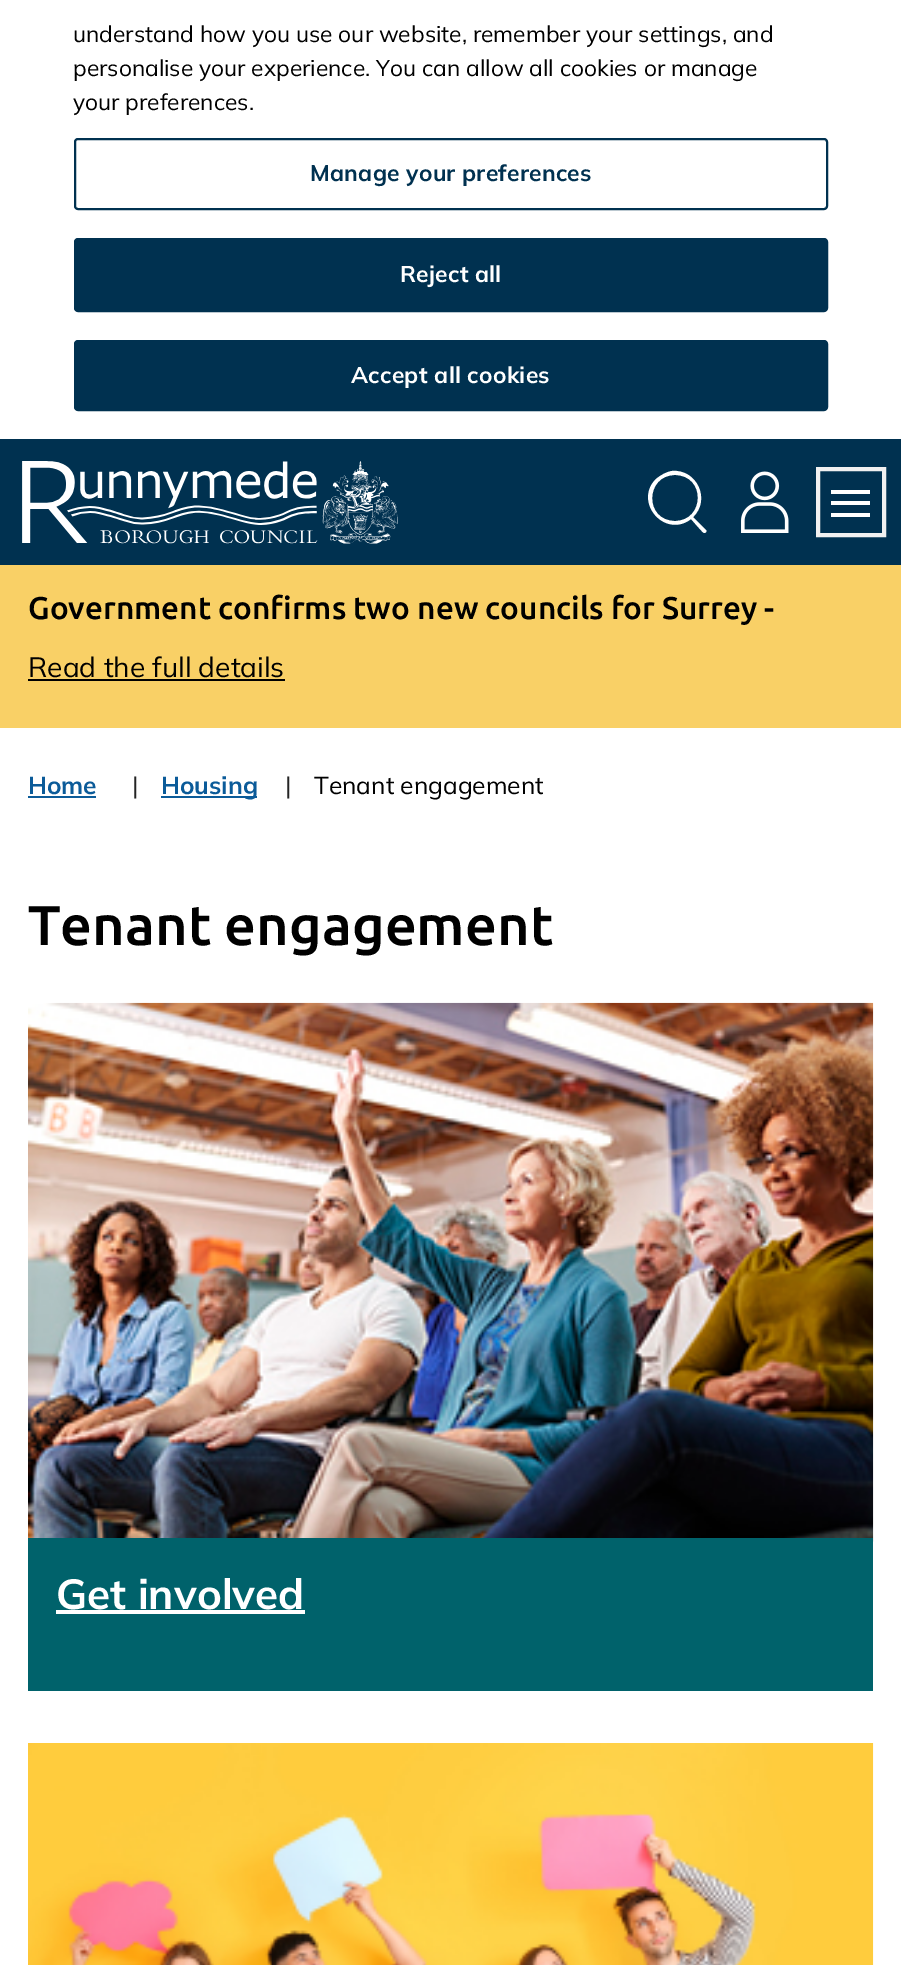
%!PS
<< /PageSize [901 1965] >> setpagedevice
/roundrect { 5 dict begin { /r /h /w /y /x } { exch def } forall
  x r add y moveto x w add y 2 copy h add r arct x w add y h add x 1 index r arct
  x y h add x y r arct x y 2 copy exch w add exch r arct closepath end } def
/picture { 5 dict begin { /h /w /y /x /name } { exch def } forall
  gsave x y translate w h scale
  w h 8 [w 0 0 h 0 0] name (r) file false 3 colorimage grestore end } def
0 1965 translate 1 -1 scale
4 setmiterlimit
1 setgray
0 0 901 1965 rectfill
/Mulish-Regular [22.75 0 0 -22.75 0 0] selectfont
0 setgray
73 42 moveto (understand how you use our website, remember your settings, and) show
73 76 moveto (personalise your experience. You can allow all cookies or manage) show
73 110 moveto (your preferences.) show
0 0.192 0.314 setrgbcolor
2 setlinewidth
75 139 752 70 3 roundrect stroke
/Mulish-Bold [22.75 0 0 -22.75 0 0] selectfont
310 181 moveto 0.25 0 (Manage your preferences) ashow
75 239 752 72 3 roundrect gsave fill grestore
stroke
1 setgray
400 282 moveto 0.25 0 (Reject all) ashow
0 0.192 0.314 setrgbcolor
75 341 752 69 3 roundrect gsave fill grestore
stroke
1 setgray
351 383 moveto 0.25 0 (Accept all cookies) ashow
0 0.192 0.314 setrgbcolor
0 439 901 126 rectfill
(img1.rgb) 22 461 376 83 picture
1 setgray
newpath 706 530 moveto 693 517 lineto 711 500 697 469 672 471 curveto 666 472 661 475 656 479 curveto 633 502 665 539 691 519 curveto 693 521 703 533 704 533 curveto 706 533 707 531 706 530 curveto closepath 675 521 moveto 644 521 645 475 675 475 curveto 706 475 705 521 675 521 curveto closepath fill
(img2.rgb) 741 471 48 62 picture
0.945 setgray
4 setlinewidth
818 469 66 66 rectstroke
1 setgray
831 490 39 4 rectfill
831 501 39 4 rectfill
831 513 39 4 rectfill
0.976 0.816 0.4 setrgbcolor
0 565 901 163 rectfill
/Ubuntu-Medium [31.5 0 0 -31.5 0 0] selectfont
0 setgray
28 619 moveto (Government confirms two new councils for Surrey -) show
/Mulish-Regular [28 0 0 -28 0 0] selectfont
28 677 moveto (Read the full details) show
28 679 257 2 rectfill
/Mulish-Bold [24.5 0 0 -24.5 0 0] selectfont
0.043 0.357 0.6 setrgbcolor
28 794 moveto (Home) show
28 796 68 2 rectfill
/Mulish-Regular [24.5 0 0 -24.5 0 0] selectfont
0.141 setgray
132 794 moveto (|) show
0.043 0.357 0.6 setrgbcolor
161 796 96 2 rectfill
/Mulish-Bold [24.5 0 0 -24.5 0 0] selectfont
161 794 moveto (Housing) show
/Mulish-Regular [24.5 0 0 -24.5 0 0] selectfont
0.141 setgray
285 794 moveto (|) show
0 setgray
314 794 moveto (Tenant engagement) show
/Ubuntu-Medium [56 0 0 -56 0 0] selectfont
28 945 moveto (Tenant engagement) show
(img3.rgb) 28 1002 846 540 picture
0 0.384 0.42 setrgbcolor
28 1538 845 153 rectfill
/Mulish-Bold [42 0 0 -42 0 0] selectfont
1 setgray
56 1609 moveto (Get involved) show
56 1610 249 4 rectfill
(img4.rgb) 28 1743 846 222 picture
showpage
